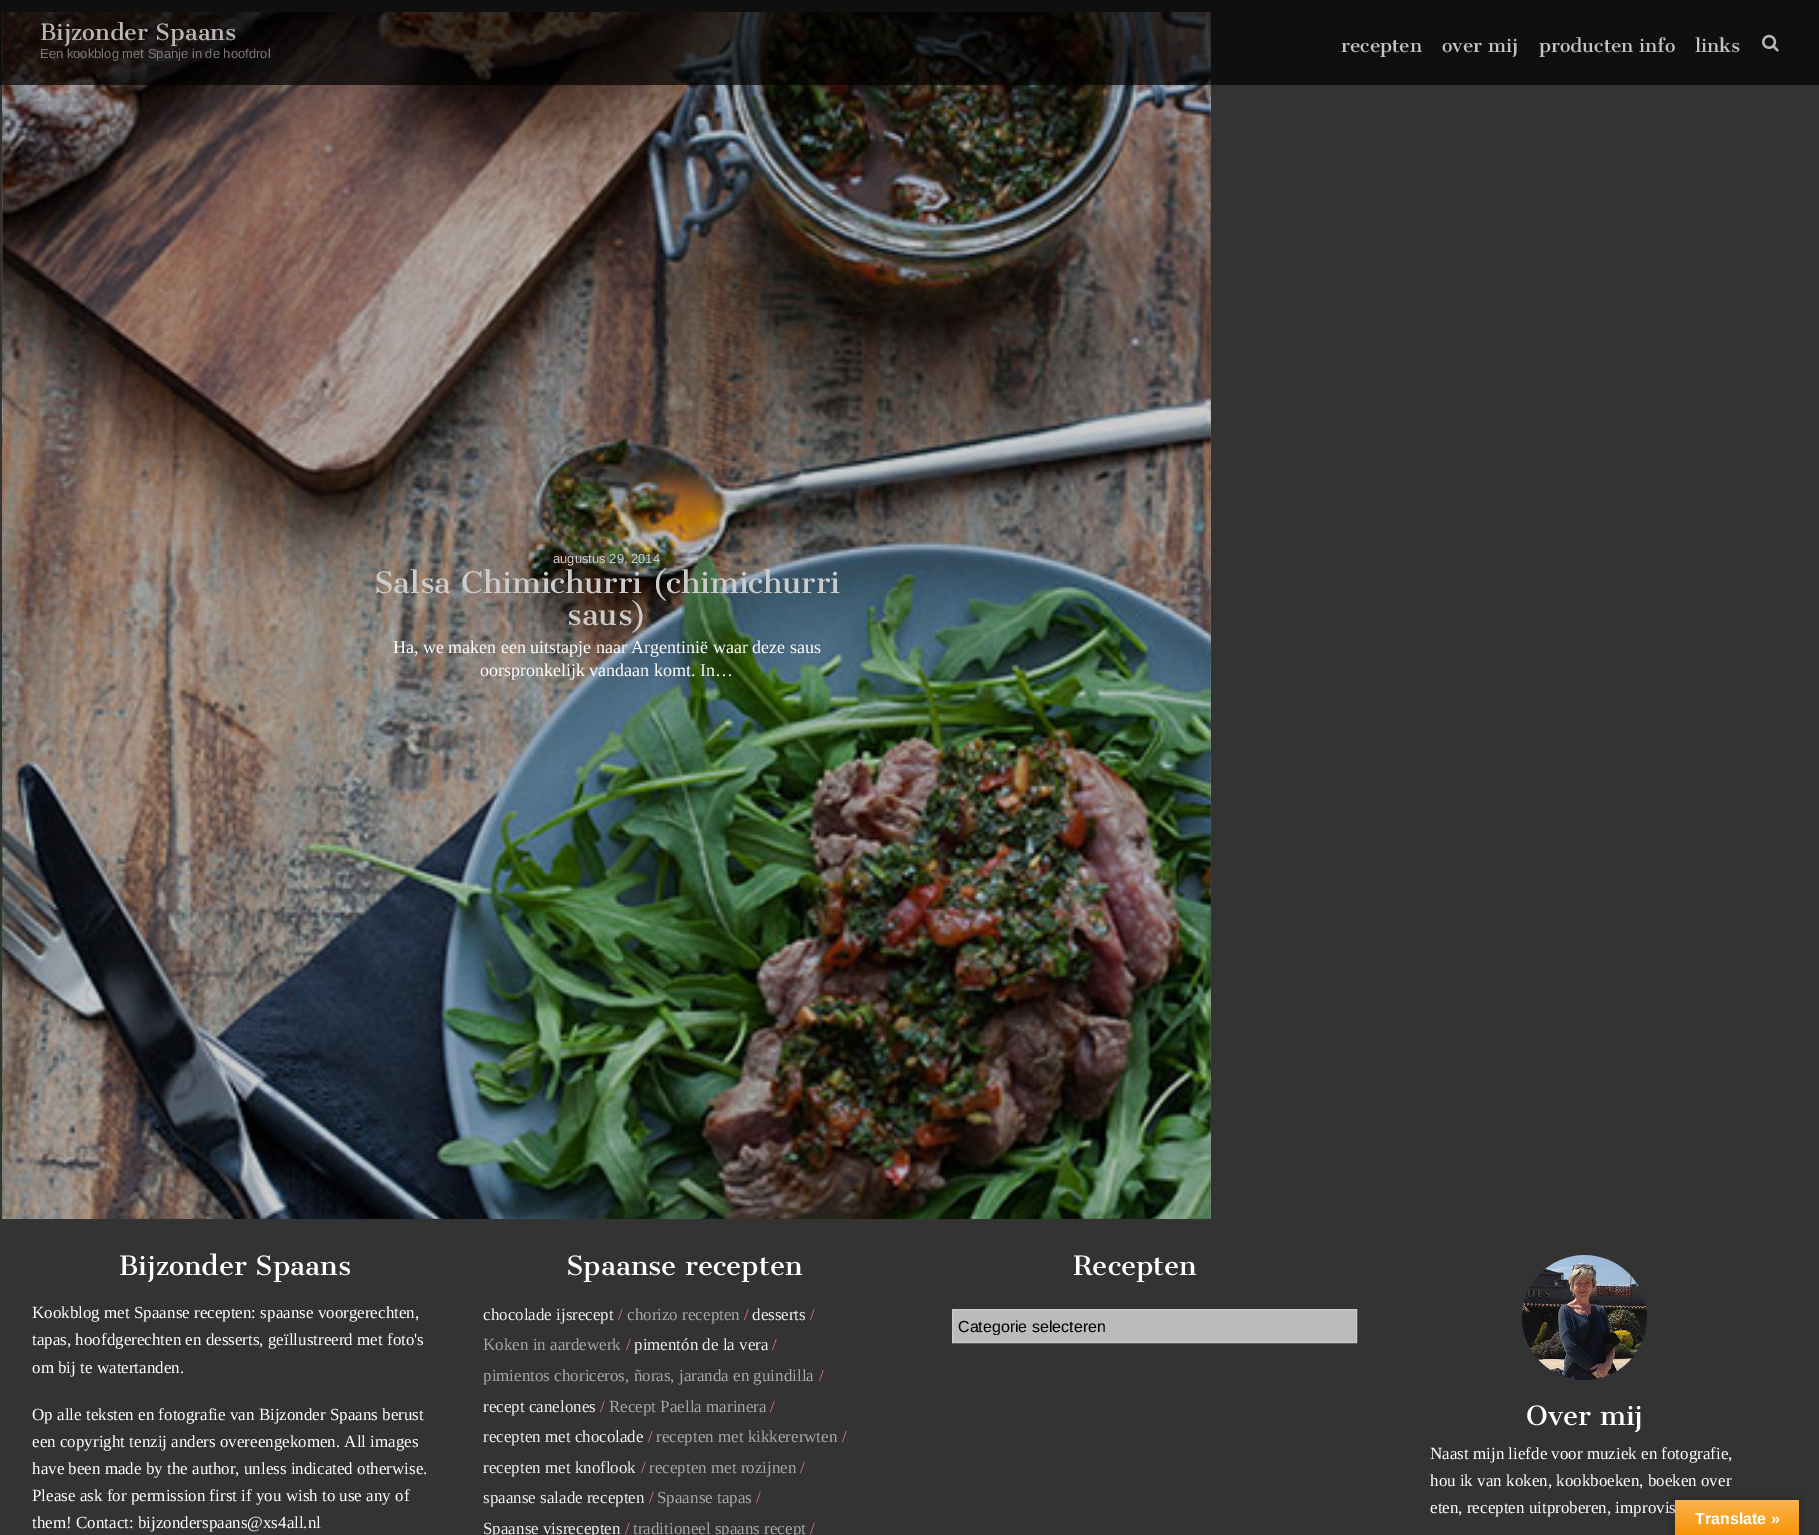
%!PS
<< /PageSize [1819 1535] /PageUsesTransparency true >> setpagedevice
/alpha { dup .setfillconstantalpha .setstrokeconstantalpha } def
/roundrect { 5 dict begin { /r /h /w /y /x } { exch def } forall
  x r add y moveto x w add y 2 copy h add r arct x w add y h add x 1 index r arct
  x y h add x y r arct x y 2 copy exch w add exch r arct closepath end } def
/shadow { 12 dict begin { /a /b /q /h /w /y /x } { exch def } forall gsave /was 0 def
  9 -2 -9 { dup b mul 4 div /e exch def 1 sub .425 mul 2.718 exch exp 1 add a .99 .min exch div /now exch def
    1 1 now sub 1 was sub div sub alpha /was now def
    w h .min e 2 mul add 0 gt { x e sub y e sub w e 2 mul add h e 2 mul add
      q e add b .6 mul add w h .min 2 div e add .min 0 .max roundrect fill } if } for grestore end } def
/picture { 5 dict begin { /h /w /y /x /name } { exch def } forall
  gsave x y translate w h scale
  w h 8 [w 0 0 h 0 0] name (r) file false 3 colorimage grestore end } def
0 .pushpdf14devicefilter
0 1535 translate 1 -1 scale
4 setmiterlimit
0.2 setgray
0 0 1819 1535 rectfill
(img2.rgb) 2 12 1209 1207 picture
0.7 alpha
0 setgray
0 0 1819 85 rectfill
/CantataOne-Regular [22 0 0 -22 0 0] selectfont
1 alpha
0.729 0.722 0.718 setrgbcolor
40 40 moveto (Bijzonder Spaans) show
/LiberationSans-Regular [13 0 0 -13 0 0] selectfont
0.482 0.475 0.475 setrgbcolor
40 58 moveto (Een kookblog met Spanje in de hoofdrol) show
/CantataOne-Regular [18 0 0 -18 0 0] selectfont
0.761 setgray
1341 52 moveto (recepten) show
1442 52 moveto (over mij) show
1539 52 moveto (producten info) show
1695 52 moveto (links) show
(img1.rgb) 1762 34 17 18 picture
/LiberationSans-Regular [13 0 0 -13 0 0] selectfont
0.8 setgray
553 563 moveto (augustus 29, 2014) show
/CantataOne-Regular [29 0 0 -29 0 0] selectfont
374 593 moveto (Salsa Chimichurri \(chimichurri) show
567 625 moveto (saus\)) show
/LiberationSerif-Regular [18 0 0 -18 0 0] selectfont
1 setgray
393 653 moveto (Ha, we maken een uitstapje naar Argentinië waar deze saus) show
480 676 moveto (oorspronkelijk vandaan komt. In…) show
/CantataOne-Regular [26 0 0 -26 0 0] selectfont
119 1275 moveto (Bijzonder Spaans) show
/LiberationSerif-Regular [17 0 0 -17 0 0] selectfont
32 1318 moveto (Kookblog met Spaanse recepten: spaanse voorgerechten,) show
32 1345 moveto (tapas, hoofdgerechten en desserts, geïllustreerd met foto's) show
32 1373 moveto (om bij te watertanden.) show
32 1420 moveto (Op alle teksten en fotografie van Bijzonder Spaans berust) show
32 1447 moveto (een copyright tenzij anders overeengekomen. All images) show
32 1474 moveto (have been made by the author, unless indicated otherwise.) show
32 1501 moveto (Please ask for permission first if you wish to use any of) show
32 1528 moveto (them! Contact: bijzonderspaans@xs4all.nl) show
/CantataOne-Regular [26 0 0 -26 0 0] selectfont
566 1275 moveto (Spaanse recepten) show
/LiberationSerif-Regular [17 0 0 -17 0 0] selectfont
0.937 setgray
483 1320 moveto (chocolade ijsrecept) show
0.867 0.451 0.522 setrgbcolor
618 1320 moveto (/) show
0.651 setgray
627 1320 moveto (chorizo recepten) show
0.867 0.451 0.522 setrgbcolor
744 1320 moveto (/) show
0.937 setgray
752 1320 moveto (desserts) show
0.867 0.451 0.522 setrgbcolor
810 1320 moveto (/) show
0.651 setgray
483 1350 moveto (Koken in aardewerk) show
0.867 0.451 0.522 setrgbcolor
626 1350 moveto (/) show
0.937 setgray
634 1350 moveto (pimentón de la vera) show
0.867 0.451 0.522 setrgbcolor
772 1350 moveto (/) show
0.651 setgray
483 1381 moveto (pimientos choriceros, ñoras, jaranda en guindilla) show
0.867 0.451 0.522 setrgbcolor
819 1381 moveto (/) show
0.937 setgray
483 1412 moveto (recept canelones) show
0.867 0.451 0.522 setrgbcolor
600 1412 moveto (/) show
0.651 setgray
609 1412 moveto (Recept Paella marinera) show
0.867 0.451 0.522 setrgbcolor
770 1412 moveto (/) show
0.937 setgray
483 1442 moveto (recepten met chocolade) show
0.867 0.451 0.522 setrgbcolor
648 1442 moveto (/) show
0.651 setgray
656 1442 moveto (recepten met kikkererwten) show
0.867 0.451 0.522 setrgbcolor
842 1442 moveto (/) show
0.937 setgray
483 1473 moveto (recepten met knoflook) show
0.867 0.451 0.522 setrgbcolor
641 1473 moveto (/) show
0.651 setgray
649 1473 moveto (recepten met rozijnen) show
0.867 0.451 0.522 setrgbcolor
800 1473 moveto (/) show
0.937 setgray
483 1503 moveto (spaanse salade recepten) show
0.867 0.451 0.522 setrgbcolor
649 1503 moveto (/) show
0.651 setgray
657 1503 moveto (Spaanse tapas) show
0.867 0.451 0.522 setrgbcolor
756 1503 moveto (/) show
0.937 setgray
483 1534 moveto (Spaanse visrecepten) show
0.867 0.451 0.522 setrgbcolor
625 1534 moveto (/) show
0.651 setgray
633 1534 moveto (traditioneel spaans recept) show
0.867 0.451 0.522 setrgbcolor
810 1534 moveto (/) show
/CantataOne-Regular [26 0 0 -26 0 0] selectfont
1 setgray
1073 1275 moveto (Recepten) show
0.733 setgray
newpath 952.5 1309.5 moveto 1356.5 1309.5 lineto 1356.5 1342.5 lineto 952.5 1342.5 lineto closepath gsave fill grestore
0.8 setgray
stroke
gsave
958 1318 363 17 rectclip
/LiberationSans-Regular [16 0 0 -16 0 0] selectfont
0 setgray
958 1332 moveto (Categorie selecteren) show
grestore
(img3.rgb) 1522 1255 125 125 picture
1 setgray
1526 1425 moveto (Over mij) show
/LiberationSerif-Regular [17 0 0 -17 0 0] selectfont
1430 1459 moveto (Naast mijn liefde voor muziek en fotografie,) show
1430 1486 moveto (hou ik van koken, kookboeken, boeken over) show
1430 1513 moveto (eten, recepten uitproberen, improvis) show
0 setgray
1675 1500 124 35 0 4.5 0.3 shadow
gsave newpath 1675 1500 moveto 1799 1500 lineto 1799 1535 lineto 1675 1535 lineto closepath clip newpath
<< /ShadingType 2 /ColorSpace /DeviceRGB /Coords [1737 1500 1737 1535] /Extend [true true] /Function << /FunctionType 2 /Domain [0 1] /C0 [0.984 0.706 0.314] /C1 [0.973 0.58 0.024] /N 1 >> >> shfill grestore
/LiberationSans-Bold [16 0 0 -16 0 0] selectfont
1 setgray
1695 1524 moveto (Translate ») show
.poppdf14devicefilter showpage
